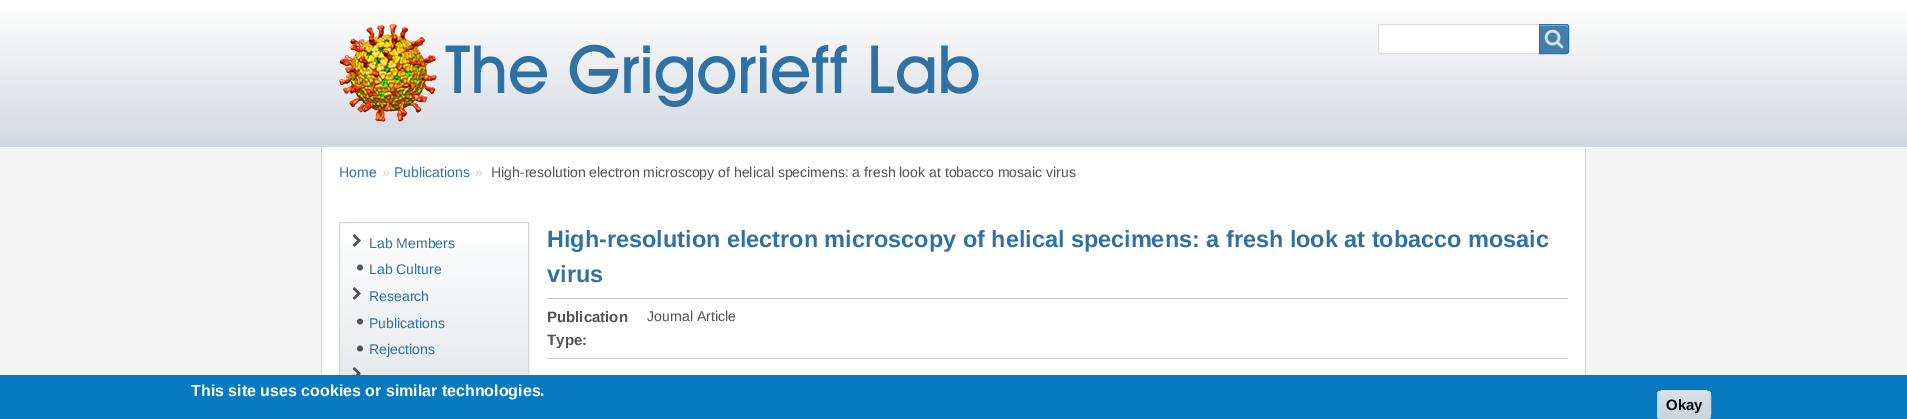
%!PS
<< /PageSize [1907 419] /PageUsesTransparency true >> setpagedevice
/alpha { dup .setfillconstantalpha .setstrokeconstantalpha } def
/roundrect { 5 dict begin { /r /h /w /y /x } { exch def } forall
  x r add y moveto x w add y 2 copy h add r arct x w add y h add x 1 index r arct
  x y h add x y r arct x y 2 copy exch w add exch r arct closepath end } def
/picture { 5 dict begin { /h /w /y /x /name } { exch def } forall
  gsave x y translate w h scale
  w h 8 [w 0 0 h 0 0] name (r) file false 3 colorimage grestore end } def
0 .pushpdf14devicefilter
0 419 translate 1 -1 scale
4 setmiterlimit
1 setgray
0 0 1907 419 rectfill
gsave newpath 0 147 moveto 1907 147 lineto 1907 375 lineto 0 375 lineto closepath clip newpath
<< /ShadingType 2 /ColorSpace /DeviceRGB /Coords [953 0 954 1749] /Extend [true true] /Function << /FunctionType 2 /Domain [0 1] /C0 [0.957 0.957 0.957] /C1 [0.984 0.984 0.984] /N 1 >> >> shfill grestore
gsave newpath 0 8 moveto 1907 8 lineto 1907 147 lineto 0 147 lineto closepath clip newpath
<< /ShadingType 2 /ColorSpace /DeviceRGB /Coords [954 0 954 147] /Extend [true true] /Function << /FunctionType 2 /Domain [0 1] /C0 [1 1 1] /C1 [0.827 0.847 0.878] /N 1 >> >> shfill grestore
(img1.rgb) 339 24 640 98 picture
1378.5 24.5 190 29 2.5 roundrect gsave fill grestore
0.863 setgray
stroke
0.9 alpha
0.184 0.443 0.635 setrgbcolor
newpath 1539 24 moveto 1566 24 lineto 1567.5 24 1569 25.5 1569 27 curveto 1569 51 lineto 1569 52.5 1567.5 54 1566 54 curveto 1539 54 lineto closepath fill
1 alpha
(img2.rgb) 1544 29 20 20 picture
0.596 0.725 0.82 setrgbcolor
newpath 1540 26 moveto 1566 26 lineto 1567 26 1568 27 1568 28 curveto 1568 27 lineto 1568 26 1567 25 1566 25 curveto 1540 25 lineto closepath fill
0.9 alpha
0.184 0.443 0.635 setrgbcolor
newpath 1539.5 24.5 moveto 1566 24.5 lineto 1567.5 24.5 1568.5 25.5 1568.5 27 curveto 1568.5 51 lineto 1568.5 52.5 1567.5 53.5 1566 53.5 curveto 1539.5 53.5 lineto closepath stroke
1 alpha
1 setgray
322 147 1263 228 rectfill
0.827 0.847 0.878 setrgbcolor
1585 147 1 228 rectfill
321 147 1 228 rectfill
/LiberationSans-Regular [14.05 0 0 -14.05 0 0] selectfont
0.184 0.443 0.635 setrgbcolor
339 177 moveto (Home) show
0.82 setgray
382 177 moveto (») show
0.184 0.443 0.635 setrgbcolor
394 177 moveto (Publications) show
0.82 setgray
475 177 moveto (») show
0.325 setgray
491 177 moveto (High-resolution electron microscopy of helical specimens: a fresh look at tobacco mosaic virus) show
gsave newpath 340 239 moveto 528 239 lineto 528 375 lineto 340 375 lineto closepath clip newpath
<< /ShadingType 2 /ColorSpace /DeviceRGB /Coords [434 223 434 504] /Extend [true true] /Function << /FunctionType 2 /Domain [0 1] /C0 [1 1 1] /C1 [0.827 0.847 0.878] /N 1 >> >> shfill grestore
0.827 0.847 0.878 setrgbcolor
339.5 222.5 189 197 rectstroke
(img3.rgb) 352 234 9 13 picture
0.184 0.443 0.635 setrgbcolor
369 248 moveto (Lab Members) show
(img4.rgb) 357 264 6 7 picture
369 274 moveto (Lab Culture) show
(img5.rgb) 352 287 9 13 picture
369 301 moveto (Research) show
(img6.rgb) 357 318 6 7 picture
369 328 moveto (Publications) show
(img7.rgb) 357 345 6 7 picture
369 354 moveto (Rejections) show
(img8.rgb) 352 367 9 8 picture
/LiberationSans-Bold [23.45 0 0 -23.45 0 0] selectfont
547 247 moveto (High-resolution electron microscopy of helical specimens: a fresh look at tobacco mosaic) show
547 282 moveto (virus) show
0.8 setgray
547 298 1021 1 rectfill
/LiberationSans-Bold [15 0 0 -15 0 0] selectfont
0.325 setgray
547 322 moveto (Publication) show
547 345 moveto (Type:) show
/LiberationSans-Regular [14.05 0 0 -14.05 0 0] selectfont
647 321 moveto (Journal Article) show
0.8 setgray
547 358 1021 1 rectfill
0.027 0.475 0.749 setrgbcolor
0 375 1907 44 rectfill
/LiberationSans-Bold [16 0 0 -16 0 0] selectfont
1 setgray
191 396 moveto (This site uses cookies or similar technologies.) show
gsave
1657 390 54 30 6 roundrect clip newpath
gsave newpath 1657 391 moveto 1711 391 lineto 1711 419 lineto 1657 419 lineto closepath clip newpath
<< /ShadingType 2 /ColorSpace /DeviceRGB /Coords [1684 391 1684 419] /Extend [true true] /Function << /FunctionType 3 /Domain [0 1] /Functions [<< /FunctionType 2 /Domain [0 1] /C0 [0.839 0.882 0.91] /C1 [0.839 0.882 0.91] /N 1 >> << /FunctionType 2 /Domain [0 1] /C0 [0.839 0.882 0.91] /C1 [0.788 0.835 0.863] /N 1 >>] /Bounds [0.05] /Encode [0 1 0 1] >> >> shfill grestore
grestore
0.902 0.949 0.976 setrgbcolor
newpath 1663 392 moveto 1705 392 lineto 1708 392 1710 394 1710 397 curveto 1710 390 1704 391 1698 391 curveto 1670 391 lineto 1664 391 1658 390 1658 397 curveto 1658 394 1660 392 1663 392 curveto closepath fill
0.78 0.824 0.851 setrgbcolor
1657.5 390.5 53 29 5.5 roundrect stroke
/LiberationSans-Bold [15 0 0 -15 0 0] selectfont
0.004 0.047 0.075 setrgbcolor
1666 410 moveto (Okay) show
.poppdf14devicefilter showpage
